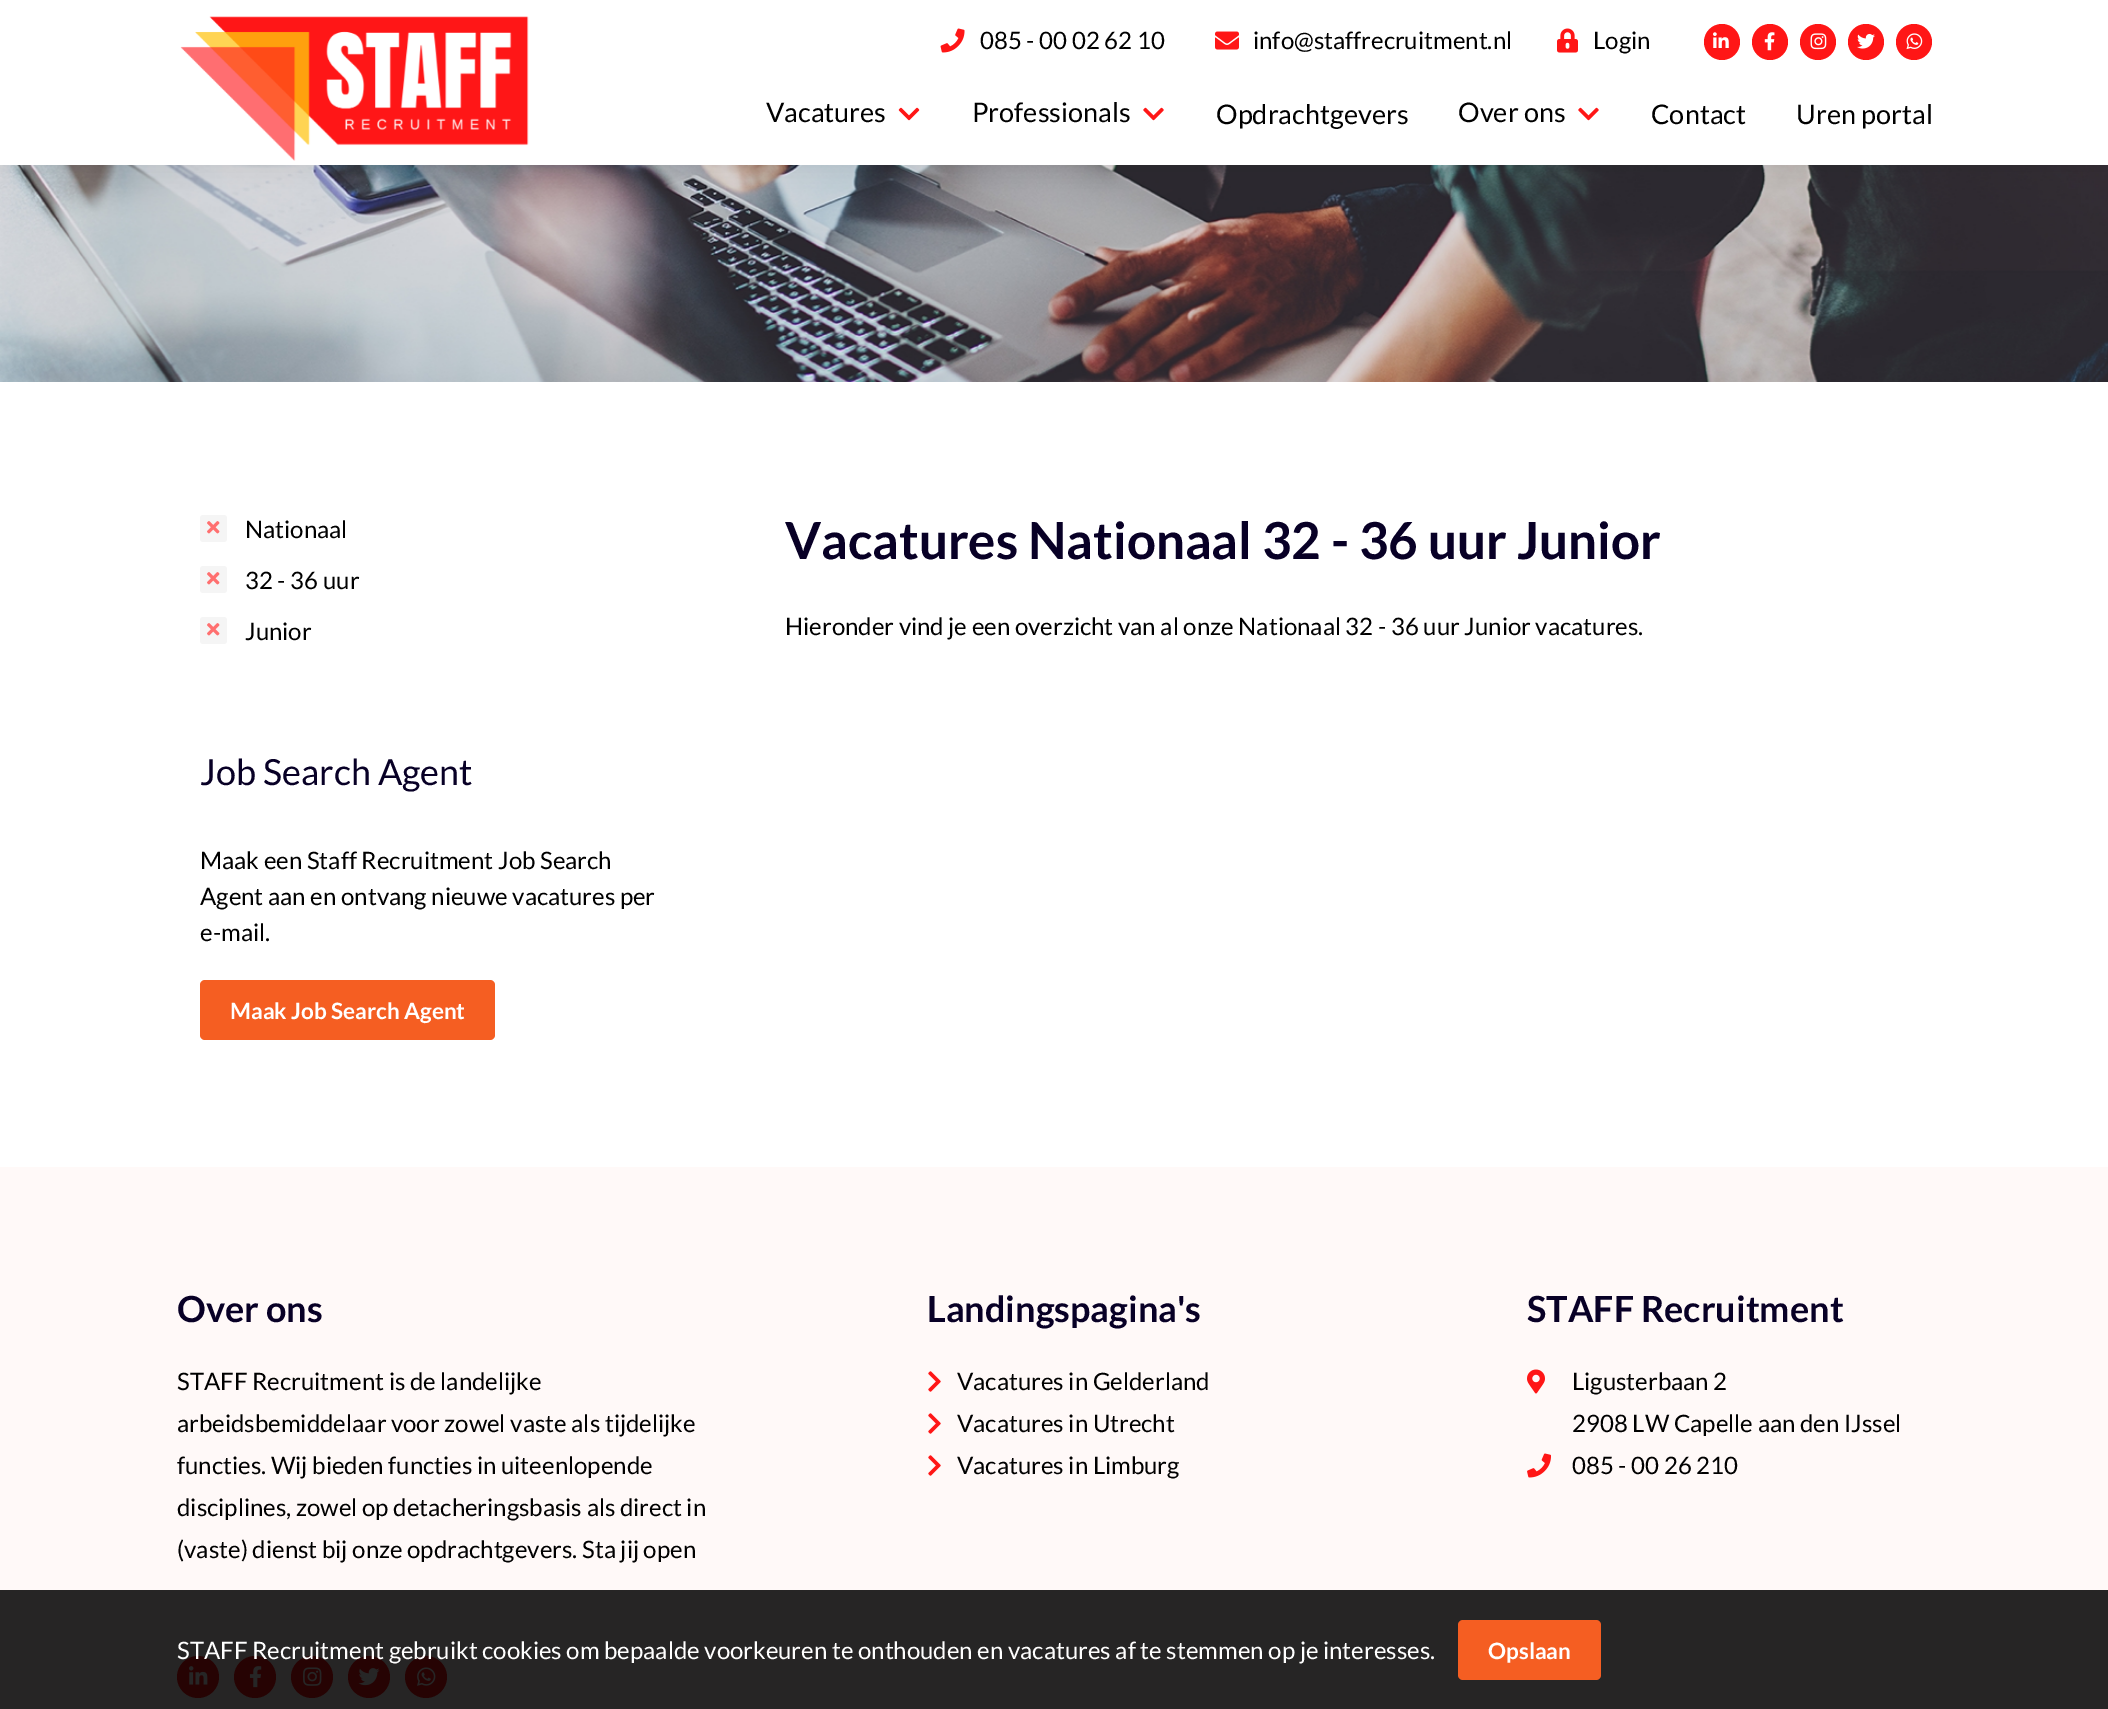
%!PS
<< /PageSize [2108 1709] /PageUsesTransparency true >> setpagedevice
/alpha { dup .setfillconstantalpha .setstrokeconstantalpha } def
/roundrect { 5 dict begin { /r /h /w /y /x } { exch def } forall
  x r add y moveto x w add y 2 copy h add r arct x w add y h add x 1 index r arct
  x y h add x y r arct x y 2 copy exch w add exch r arct closepath end } def
/shadow { 12 dict begin { /a /b /q /h /w /y /x } { exch def } forall gsave /was 0 def
  9 -2 -9 { dup b mul 4 div /e exch def 1 sub .425 mul 2.718 exch exp 1 add a .99 .min exch div /now exch def
    1 1 now sub 1 was sub div sub alpha /was now def
    w h .min e 2 mul add 0 gt { x e sub y e sub w e 2 mul add h e 2 mul add
      q e add b .6 mul add w h .min 2 div e add .min 0 .max roundrect fill } if } for grestore end } def
/picture { 5 dict begin { /h /w /y /x /name } { exch def } forall
  gsave x y translate w h scale
  w h 8 [w 0 0 h 0 0] name (r) file false 3 colorimage grestore end } def
0 .pushpdf14devicefilter
0 1709 translate 1 -1 scale
4 setmiterlimit
1 setgray
0 0 2108 1709 rectfill
(img12.rgb) 0 165 2108 217 picture
0 setgray
0 5 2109 165 0 11 0.05 shadow
1 setgray
0 0 2108 165 rectfill
(img1.rgb) 180 16 349 145 picture
(img2.rgb) 940 28 25 25 picture
/Lato-Regular [24 0 0 -24 0 0] selectfont
0 setgray
980 49 moveto (085 - 00 02 62 10) show
(img3.rgb) 1215 31 24 19 picture
1253 49 moveto (info@staffrecruitment.nl) show
(img4.rgb) 1557 28 21 25 picture
1593 49 moveto (Login) show
1 0.086 0.086 setrgbcolor
newpath 1722 42 18 0 360 arc closepath fill
(img5.rgb) 1713 32 16 16 picture
newpath 1770 42 18 0 360 arc closepath fill
(img6.rgb) 1764 32 11 19 picture
newpath 1818 42 18 0 360 arc closepath fill
(img7.rgb) 1810 33 17 17 picture
newpath 1866 42 18 0 360 arc closepath fill
(img8.rgb) 1857 33 18 16 picture
newpath 1914 42 18 0 360 arc closepath fill
(img9.rgb) 1906 33 17 17 picture
/Lato-Regular [27 0 0 -27 0 0] selectfont
0 setgray
766 122 moveto (Vacatures) show
(img10.rgb) 898 107 22 14 picture
972 122 moveto (Professionals) show
(img11.rgb) 1143 107 21 14 picture
1216 124 moveto (Opdrachtgevers) show
1458 122 moveto (Over ons) show
(img11.rgb) 1578 107 21 14 picture
1651 124 moveto (Contact) show
1796 124 moveto (Uren portal) show
0.961 setgray
200 515 27 27 3 roundrect fill
(img13.rgb) 207 521 13 13 picture
/Lato-Regular [24 0 0 -24 0 0] selectfont
0 setgray
245 538 moveto (Nationaal) show
0.961 setgray
200 566 27 27 3 roundrect fill
(img13.rgb) 207 572 13 13 picture
0 setgray
245 589 moveto (32 - 36 uur) show
0.961 setgray
200 617 27 27 3 roundrect fill
(img13.rgb) 207 623 13 13 picture
0 setgray
245 640 moveto (Junior) show
/Lato-Regular [36 0 0 -36 0 0] selectfont
0.031 0 0.149 setrgbcolor
200 785 moveto (Job Search Agent) show
/Lato-Regular [24 0 0 -24 0 0] selectfont
0 setgray
200 869 moveto (Maak een Staff Recruitment Job Search) show
200 905 moveto (Agent aan en ontvang nieuwe vacatures per) show
200 941 moveto (e-mail.) show
0.961 0.369 0.133 setrgbcolor
200 980 295 60 5 roundrect fill
/Lato-Bold [22.5 0 0 -22.5 0 0] selectfont
1 setgray
230 1019 moveto (Maak Job Search Agent) show
/Lato-Bold [51 0 0 -51 0 0] selectfont
0.031 0 0.149 setrgbcolor
785 559 moveto (Vacatures Nationaal 32 - 36 uur Junior) show
/Lato-Regular [24 0 0 -24 0 0] selectfont
0 setgray
785 635 moveto (Hieronder vind je een overzicht van al onze Nationaal 32 - 36 uur Junior vacatures.) show
1 0.976 0.973 setrgbcolor
0 1167 2108 542 rectfill
/Lato-Bold [36 0 0 -36 0 0] selectfont
0.031 0 0.149 setrgbcolor
177 1322 moveto (Over ons) show
/Lato-Regular [24 0 0 -24 0 0] selectfont
0 setgray
177 1390 moveto (STAFF Recruitment is de landelijke) show
177 1432 moveto (arbeidsbemiddelaar voor zowel vaste als tijdelijke) show
177 1474 moveto (functies. Wij bieden functies in uiteenlopende) show
177 1516 moveto (disciplines, zowel op detacheringsbasis als direct in) show
177 1558 moveto (\(vaste\) dienst bij onze opdrachtgevers. Sta jij open) show
1 0.086 0.086 setrgbcolor
newpath 198 1677 21 0 360 arc closepath fill
(img14.rgb) 189 1666 19 19 picture
newpath 255 1677 21 0 360 arc closepath fill
(img15.rgb) 249 1666 13 22 picture
newpath 312 1677 21 0 360 arc closepath fill
(img16.rgb) 303 1667 19 19 picture
newpath 369 1677 21 0 360 arc closepath fill
(img17.rgb) 358 1668 22 18 picture
newpath 426 1677 21 0 360 arc closepath fill
(img18.rgb) 417 1667 19 19 picture
/Lato-Bold [36 0 0 -36 0 0] selectfont
0.031 0 0.149 setrgbcolor
927 1322 moveto (Landingspagina's) show
(img19.rgb) 928 1371 13 21 picture
/Lato-Regular [24 0 0 -24 0 0] selectfont
0 setgray
957 1390 moveto (Vacatures in Gelderland) show
(img19.rgb) 928 1413 13 21 picture
957 1432 moveto (Vacatures in Utrecht) show
(img19.rgb) 928 1455 13 21 picture
957 1474 moveto (Vacatures in Limburg) show
/Lato-Bold [36 0 0 -36 0 0] selectfont
0.031 0 0.149 setrgbcolor
1527 1322 moveto (STAFF Recruitment) show
(img20.rgb) 1527 1369 18 25 picture
/Lato-Regular [24 0 0 -24 0 0] selectfont
0 setgray
1572 1390 moveto (Ligusterbaan 2) show
1572 1432 moveto (2908 LW Capelle aan den IJssel) show
(img21.rgb) 1527 1453 24 25 picture
1572 1474 moveto (085 - 00 26 210) show
0.85 alpha
0 1590 2108 119 rectfill
1 alpha
1 setgray
177 1659 moveto (STAFF Recruitment gebruikt cookies om bepaalde voorkeuren te onthouden en vacatures af te stemmen op je interesses.) show
0.961 0.369 0.133 setrgbcolor
1458 1620 143 60 5 roundrect fill
/Lato-Bold [22.5 0 0 -22.5 0 0] selectfont
1 setgray
1488 1659 moveto (Opslaan) show
.poppdf14devicefilter showpage
